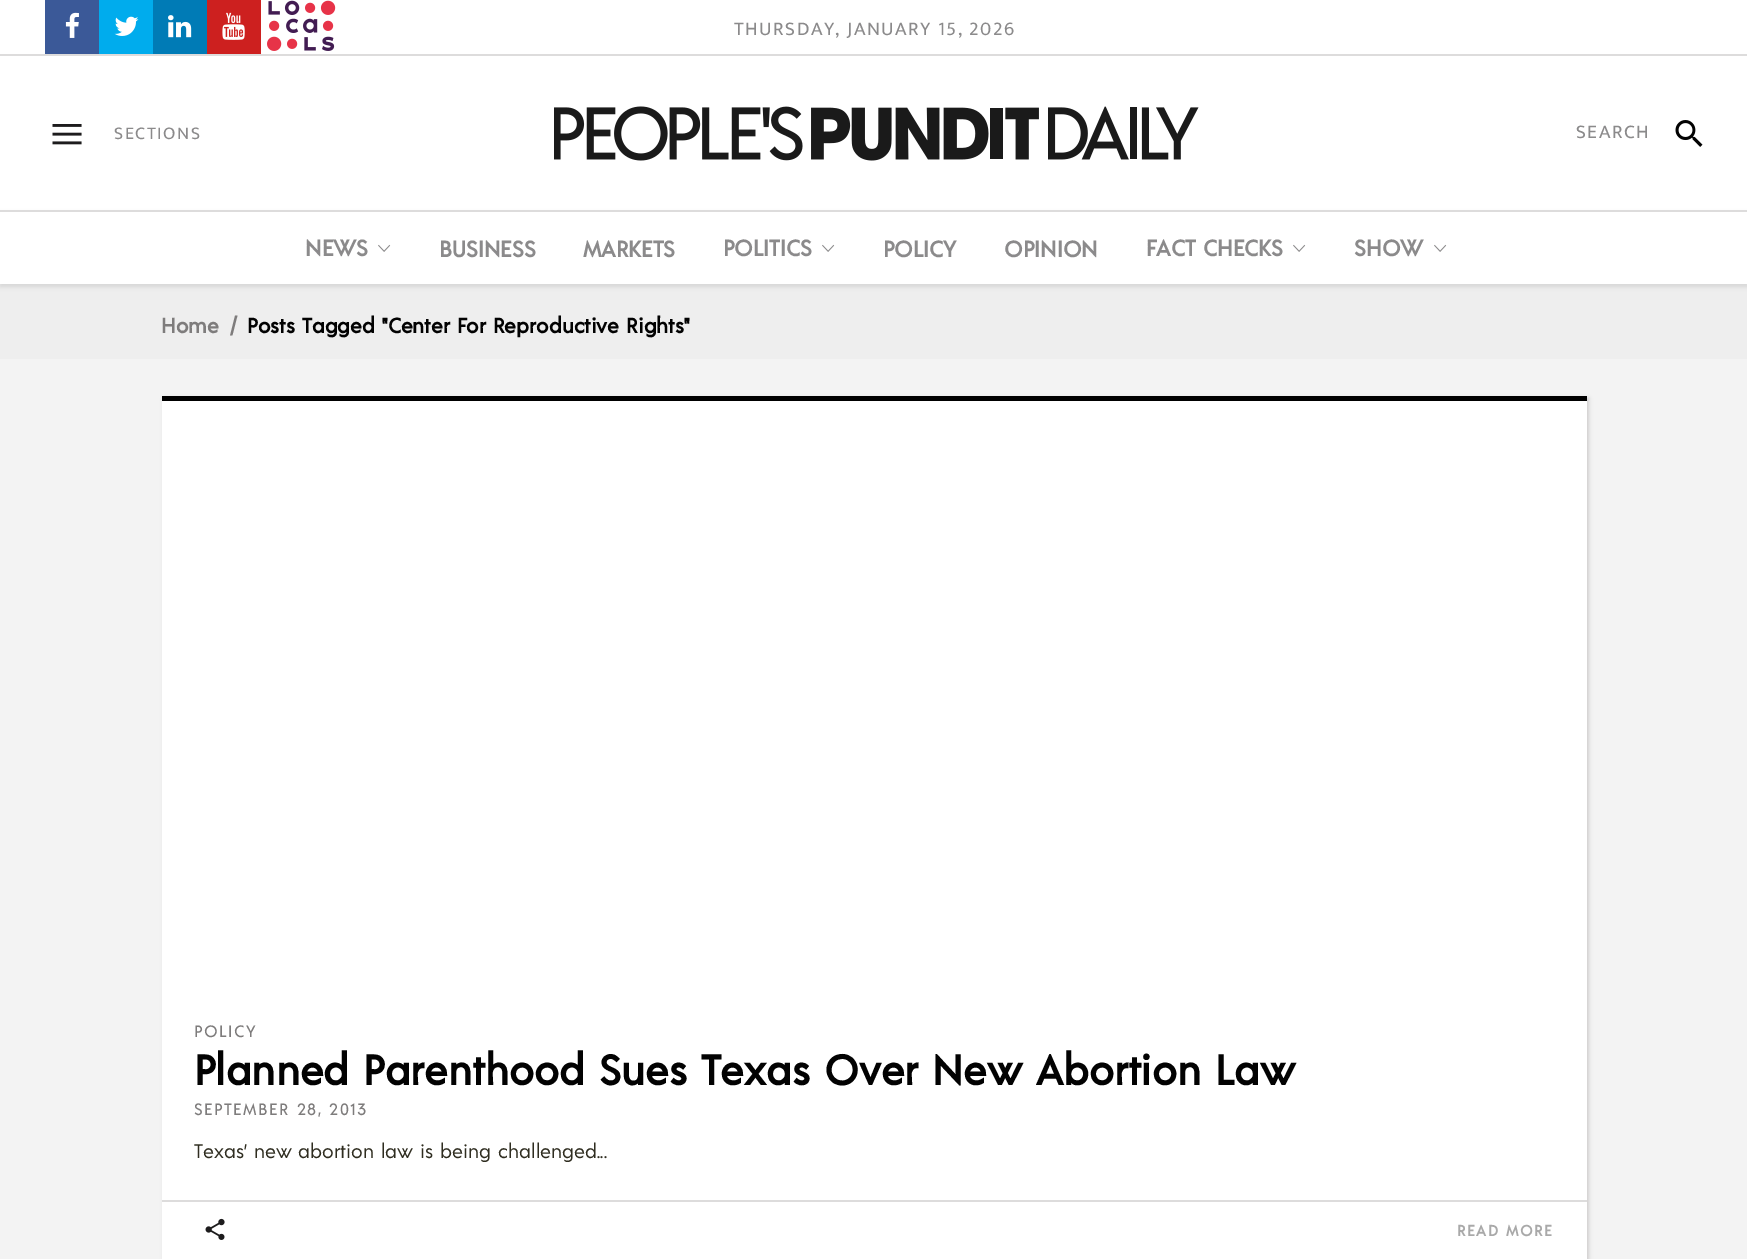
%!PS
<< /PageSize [1747 1259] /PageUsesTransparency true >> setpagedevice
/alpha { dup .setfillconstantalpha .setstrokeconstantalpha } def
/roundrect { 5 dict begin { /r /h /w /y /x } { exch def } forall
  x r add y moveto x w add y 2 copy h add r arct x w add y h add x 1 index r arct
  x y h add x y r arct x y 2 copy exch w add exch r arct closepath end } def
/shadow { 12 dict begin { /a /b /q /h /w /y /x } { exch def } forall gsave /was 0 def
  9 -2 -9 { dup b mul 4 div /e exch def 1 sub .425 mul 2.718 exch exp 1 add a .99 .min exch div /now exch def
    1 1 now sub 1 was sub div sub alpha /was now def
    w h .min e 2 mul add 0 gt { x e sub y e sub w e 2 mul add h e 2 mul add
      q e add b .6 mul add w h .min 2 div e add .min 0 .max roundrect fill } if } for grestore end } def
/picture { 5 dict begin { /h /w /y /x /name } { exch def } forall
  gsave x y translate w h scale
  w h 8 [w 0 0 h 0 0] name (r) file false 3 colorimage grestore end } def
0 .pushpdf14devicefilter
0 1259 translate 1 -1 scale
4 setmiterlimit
0.953 setgray
0 0 1747 1259 rectfill
1 setgray
0 0 1747 54 rectfill
0.867 0.863 0.863 setrgbcolor
0 54 1747 2 rectfill
0.231 0.349 0.596 setrgbcolor
45 0 54 54 rectfill
(img1.rgb) 65 12 14 26 picture
0 0.675 0.929 setrgbcolor
99 0 54 54 rectfill
(img2.rgb) 114 16 25 20 picture
0 0.482 0.714 setrgbcolor
153 0 54 54 rectfill
(img3.rgb) 168 15 24 23 picture
0.804 0.125 0.122 setrgbcolor
207 0 54 54 rectfill
(img4.rgb) 222 12 23 28 picture
(img5.rgb) 267 0 69 51 picture
/EkMukta-Regular [19.5 0 0 -19.5 0 0] selectfont
0.545 0.541 0.545 setrgbcolor
734 35 moveto 1.5 0 (THURSDAY, JANUARY 15, 2026) ashow
1 setgray
0 56 1747 154 rectfill
(img6.rgb) 52 124 30 21 picture
/EkMukta-Regular [18 0 0 -18 0 0] selectfont
0.545 0.541 0.545 setrgbcolor
114 139 moveto 1.5 0 (SECTIONS) ashow
(img7.rgb) 554 106 645 55 picture
/EkMukta-Regular [19.5 0 0 -19.5 0 0] selectfont
1576 138 moveto 1.5 0 (SEARCH) ashow
(img8.rgb) 1675 120 28 27 picture
0.933 setgray
0 284 1747 75 rectfill
0 setgray
0 213 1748 74 0 2 0.09 shadow
1 setgray
0 212 1747 72 rectfill
0.867 0.863 0.863 setrgbcolor
0 210 1747 2 rectfill
/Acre-Bold [22.5 0 0 -22.5 0 0] selectfont
0.545 0.541 0.545 setrgbcolor
305 256 moveto (NEWS) show
(img9.rgb) 378 244 13 8 picture
439 257 moveto (BUSINESS) show
583 257 moveto (MARKETS) show
723 256 moveto (POLITICS) show
(img9.rgb) 822 244 13 8 picture
883 257 moveto (POLICY) show
1004 257 moveto (OPINION) show
1146 256 moveto (FACT CHECKS) show
(img9.rgb) 1293 244 13 8 picture
1354 256 moveto (SHOW) show
(img9.rgb) 1434 244 13 8 picture
/Acre-Bold [21 0 0 -21 0 0] selectfont
0.494 0.486 0.486 setrgbcolor
161 333 moveto (Home) show
230 333 moveto (/) show
0.008 setgray
247 333 moveto (Posts Tagged "Center For Reproductive Rights") show
0.808 0.8 0.8 setrgbcolor
164 398 1425 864 0 2 1 shadow
1 setgray
162 401 1425 858 rectfill
0 setgray
162 396 1425 5 rectfill
/Acre-Medium [16.5 0 0 -16.5 0 0] selectfont
0.494 0.486 0.486 setrgbcolor
194 1037 moveto 1.5 0 (POLICY) ashow
/Acre-Bold [42 0 0 -42 0 0] selectfont
0.008 setgray
194 1085 moveto (Planned Parenthood Sues Texas Over New Abortion Law) show
/Acre-Medium [16.5 0 0 -16.5 0 0] selectfont
0.494 0.486 0.486 setrgbcolor
194 1115 moveto 1.5 0 (SEPTEMBER 28, 2013) ashow
/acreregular-Regular [19.5 0 0 -19.5 0 0] selectfont
0.184 0.176 0.125 setrgbcolor
194 1158 moveto (Texas’ new abortion law is being challenged...) show
0.867 0.863 0.863 setrgbcolor
162 1200 1425 2 rectfill
(img10.rgb) 205 1218 20 22 picture
/Acre-Bold [15.25 0 0 -15.25 0 0] selectfont
0.663 setgray
1457 1236 moveto 1.5 0 (READ MORE) ashow
.poppdf14devicefilter showpage
